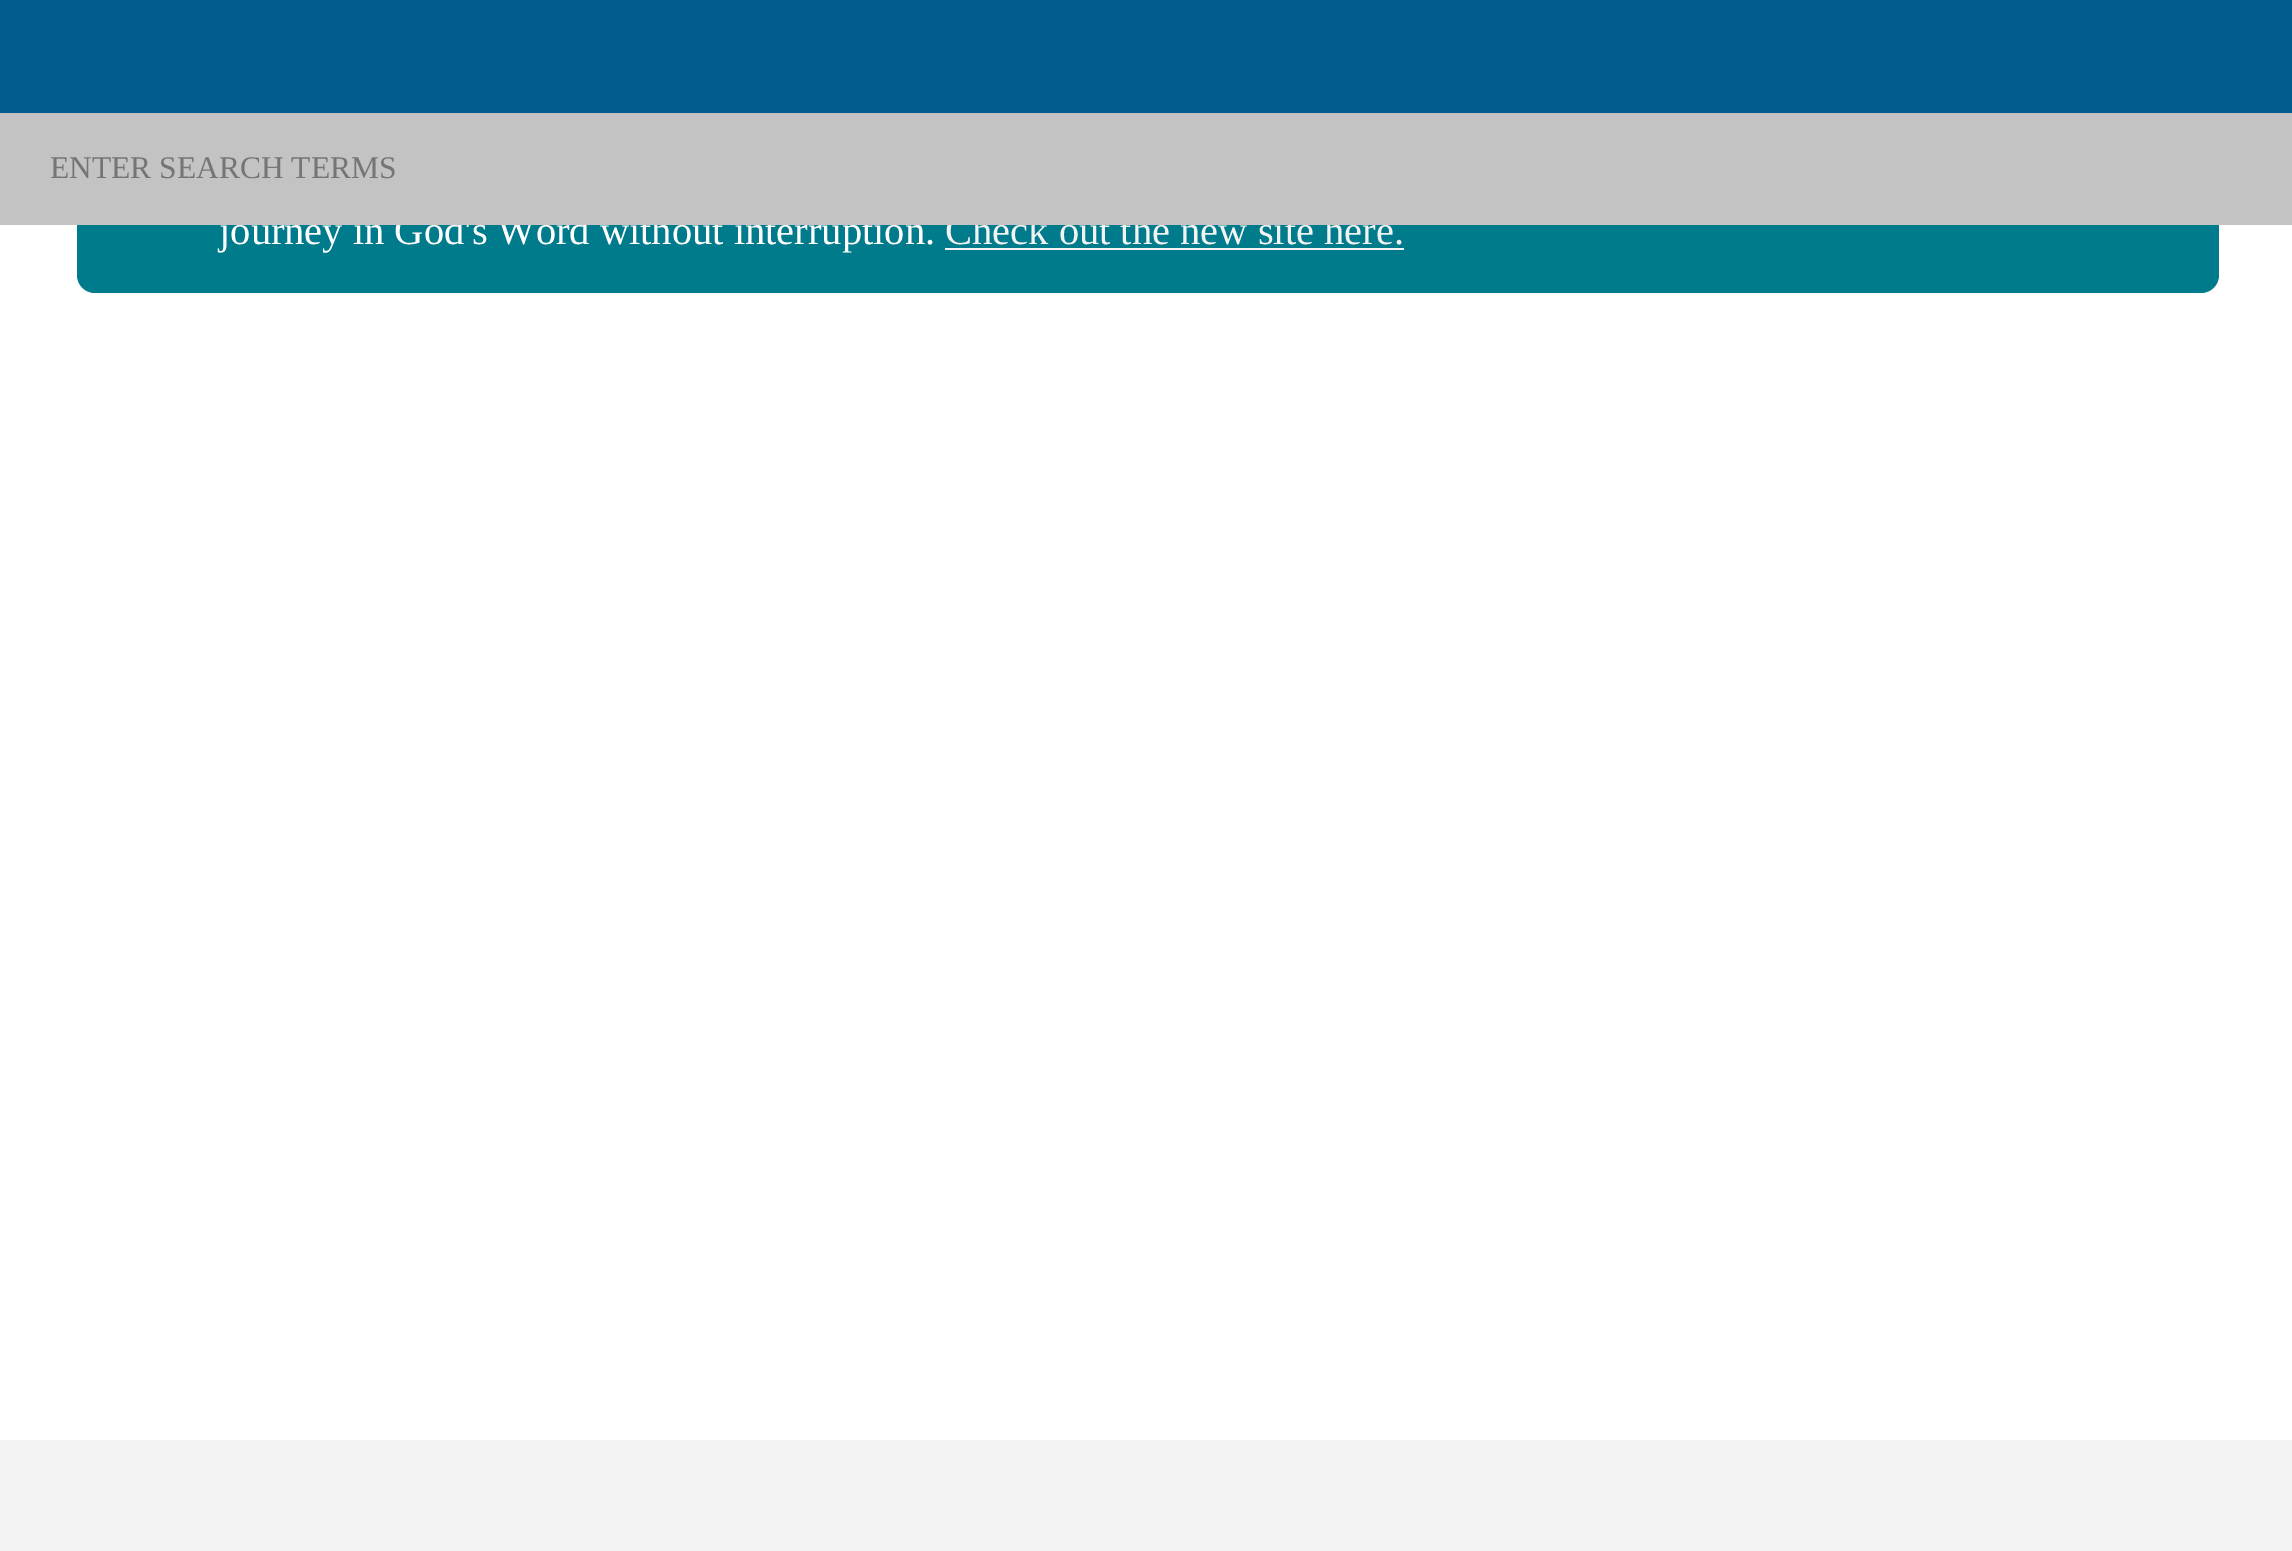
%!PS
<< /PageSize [2292 1551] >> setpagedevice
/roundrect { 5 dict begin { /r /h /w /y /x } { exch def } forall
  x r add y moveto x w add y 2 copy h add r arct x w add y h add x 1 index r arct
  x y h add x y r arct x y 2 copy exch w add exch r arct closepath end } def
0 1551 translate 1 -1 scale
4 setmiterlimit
1 setgray
0 0 2292 1551 rectfill
0 0.482 0.545 setrgbcolor
77 36 2142 257 18 roundrect fill
0.008 0.361 0.553 setrgbcolor
0 0 2292 113 rectfill
/LiberationSerif-Regular [40.5 0 0 -40.5 0 0] selectfont
1 setgray
219 244 moveto (journey in God's Word without interruption.) show
0.953 setgray
945 244 moveto (Check out the new site here.) show
0.765 setgray
0 113 2292 112 rectfill
/LiberationSerif-Regular [31.5 0 0 -31.5 0 0] selectfont
0.459 setgray
50 178 moveto (ENTER SEARCH TERMS) show
0.953 setgray
0 1440 2292 111 rectfill
945 248 459 2 rectfill
showpage
